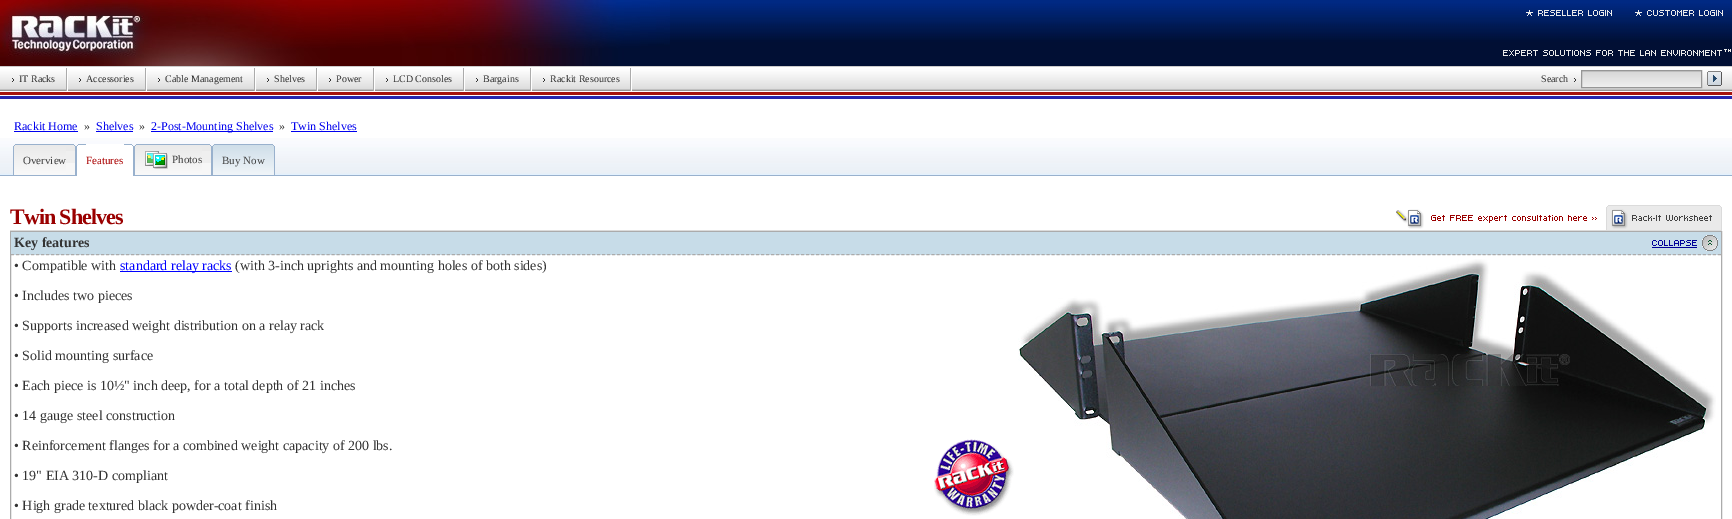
%!PS
<< /PageSize [1732 519] >> setpagedevice
/picture { 5 dict begin { /h /w /y /x /name } { exch def } forall
  gsave x y translate w h scale
  w h 8 [w 0 0 h 0 0] name (r) file false 3 colorimage grestore end } def
0 519 translate 1 -1 scale
4 setmiterlimit
1 setgray
0 0 1732 519 rectfill
(img1.rgb) 670 0 619 66 picture
(img2.rgb) 0 0 670 66 picture
(img3.rgb) 1289 0 443 66 picture
(img4.rgb) 1526 10 86 6 picture
(img5.rgb) 1635 10 88 6 picture
(img6.rgb) 1503 49 228 7 picture
(img7.rgb) 0 66 1732 25 picture
(img8.rgb) 12 78 2 4 picture
/LiberationSerif-Regular [10 0 0 -10 0 0] selectfont
0.176 setgray
19 82 moveto (IT Racks) show
(img9.rgb) 66 68 2 23 picture
(img8.rgb) 79 78 2 4 picture
86 82 moveto (Accessories) show
(img9.rgb) 145 68 2 23 picture
(img8.rgb) 158 78 2 4 picture
165 82 moveto (Cable Management) show
(img9.rgb) 254 68 2 23 picture
(img8.rgb) 267 78 2 4 picture
274 82 moveto (Shelves) show
(img9.rgb) 316 68 2 23 picture
(img8.rgb) 329 78 2 4 picture
336 82 moveto (Power) show
(img9.rgb) 373 68 2 23 picture
(img8.rgb) 386 78 2 4 picture
393 82 moveto (LCD Consoles) show
(img9.rgb) 463 68 2 23 picture
(img8.rgb) 476 78 2 4 picture
483 82 moveto (Bargains) show
(img9.rgb) 530 68 2 23 picture
(img8.rgb) 543 78 2 4 picture
550 82 moveto (Rackit Resources) show
(img9.rgb) 630 68 2 23 picture
1541 82 moveto (Search) show
(img8.rgb) 1574 78 2 4 picture
(img10.rgb) 1582 71 119 16 picture
0.588 setgray
1581.5 70.5 120 17 rectstroke
(img11.rgb) 1707 71 15 15 picture
(img12.rgb) 0 92 1732 7 picture
(img13.rgb) 0 138 5 38 picture
(img14.rgb) 5 138 1727 38 picture
/LiberationSerif-Regular [12 0 0 -12 0 0] selectfont
0 0 0.933 setrgbcolor
14 130 moveto (Rackit Home) show
14 131 64 1 rectfill
0.2 setgray
84 130 moveto (») show
0 0 0.933 setrgbcolor
96 130 moveto (Shelves) show
96 131 37 1 rectfill
0.2 setgray
139 130 moveto (») show
0 0 0.933 setrgbcolor
151 131 122 1 rectfill
151 130 moveto (2-Post-Mounting Shelves) show
0.2 setgray
279 130 moveto (») show
0 0 0.933 setrgbcolor
291 130 moveto (Twin Shelves) show
291 131 66 1 rectfill
(img15.rgb) 13 144 10 31 picture
(img16.rgb) 23 144 43 31 picture
/LiberationSerif-Regular [11 0 0 -11 0 0] selectfont
0.259 setgray
23 164 moveto (Overview) show
(img17.rgb) 66 144 10 31 picture
(img18.rgb) 76 144 10 32 picture
1 setgray
86 144 38 32 rectfill
0.667 0 0 setrgbcolor
86 164 moveto (Features) show
(img19.rgb) 124 144 10 32 picture
(img15.rgb) 134 144 10 31 picture
(img20.rgb) 144 144 58 31 picture
(img21.rgb) 145 151 23 18 picture
0.259 setgray
172 163 moveto (Photos) show
(img17.rgb) 202 144 10 31 picture
(img22.rgb) 212 144 10 31 picture
(img23.rgb) 222 144 43 31 picture
222 164 moveto (Buy Now) show
(img24.rgb) 265 144 10 31 picture
0.859 setgray
10 230 1712 1 rectfill
/LiberationSerif-Bold [22 0 0 -22 0 0] selectfont
0.604 0 0 setrgbcolor
10 224 moveto -1 0 (Twin Shelves) ashow
(img25.rgb) 1396 209 201 20 picture
(img26.rgb) 1606 205 116 25 picture
0.671 setgray
10.5 231.5 1711 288 rectstroke
0.78 0.863 0.91 setrgbcolor
11 232 1710 23 rectfill
0.671 setgray
[3 2.01] 0 setdash
newpath 11 254.5 moveto 701 254.5 lineto stroke
/LiberationSerif-Bold [14 0 0 -14 0 0] selectfont
0.2 setgray
14 247 moveto (Key features) show
0.671 setgray
newpath 701 254.5 moveto 1721 254.5 lineto stroke
(img27.rgb) 1652 235 66 16 picture
/LiberationSerif-Regular [14 0 0 -14 0 0] selectfont
0.2 setgray
14 270 moveto (• Compatible with) show
0 0 1 setrgbcolor
120 271 112 1 rectfill
120 270 moveto (standard relay racks) show
0.2 setgray
235 270 moveto (\(with 3-inch uprights and mounting holes of both sides\)) show
(img28.rgb) 1018 259 698 260 picture
14 300 moveto (• Includes two pieces) show
14 330 moveto (• Supports increased weight distribution on a relay rack) show
14 360 moveto (• Solid mounting surface) show
14 390 moveto (• Each piece is 10½" inch deep, for a total depth of 21 inches) show
14 420 moveto (• 14 gauge steel construction) show
14 450 moveto (• Reinforcement flanges for a combined weight capacity of 200 lbs.) show
(img29.rgb) 934 439 80 77 picture
14 480 moveto (• 19" EIA 310-D compliant) show
14 510 moveto (• High grade textured black powder-coat finish) show
showpage
